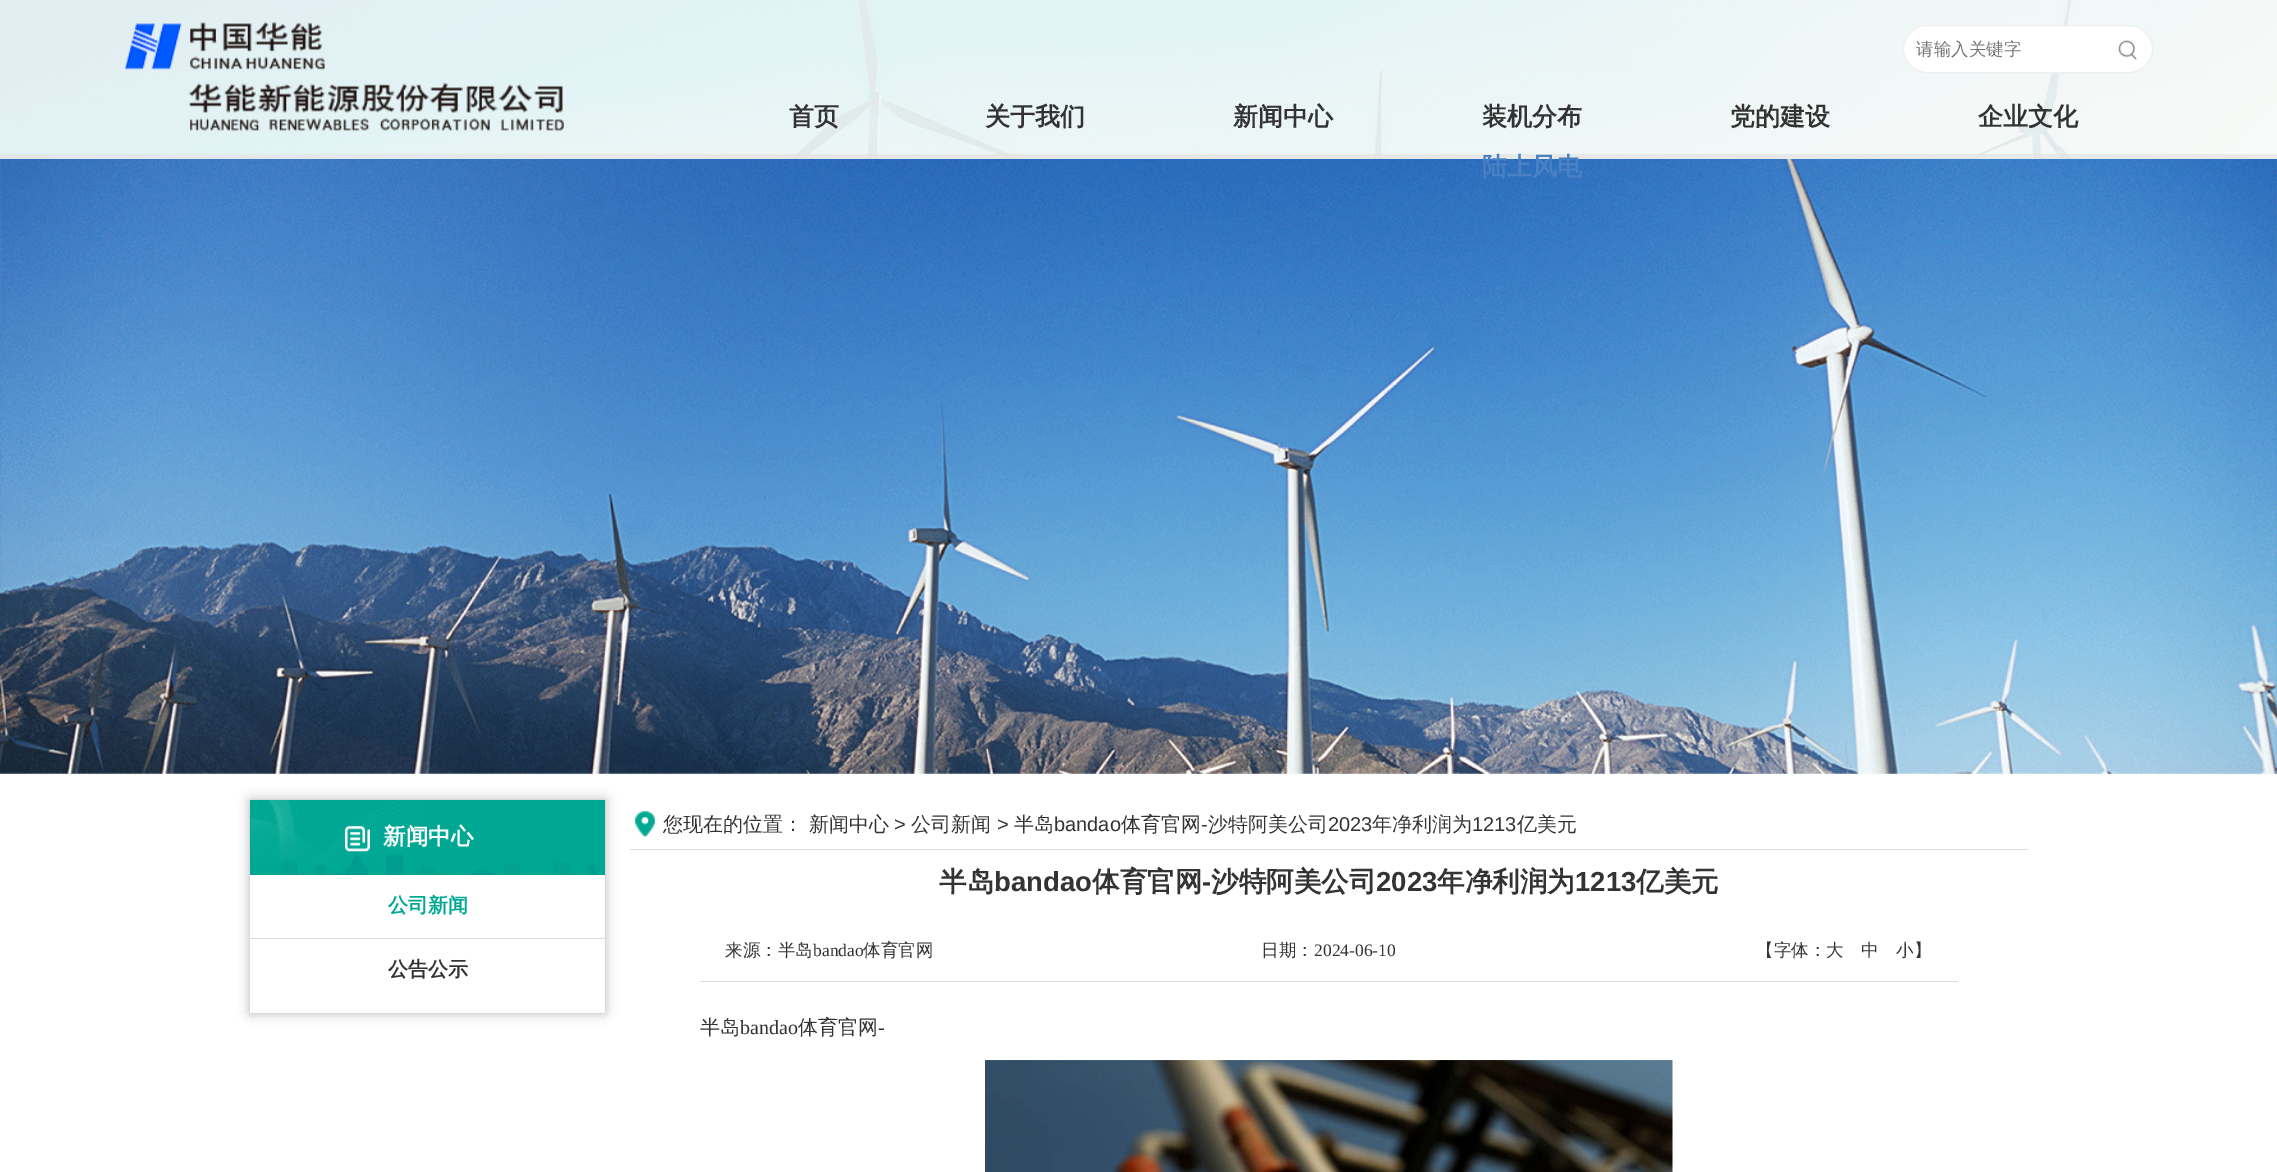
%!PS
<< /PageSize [2277 1172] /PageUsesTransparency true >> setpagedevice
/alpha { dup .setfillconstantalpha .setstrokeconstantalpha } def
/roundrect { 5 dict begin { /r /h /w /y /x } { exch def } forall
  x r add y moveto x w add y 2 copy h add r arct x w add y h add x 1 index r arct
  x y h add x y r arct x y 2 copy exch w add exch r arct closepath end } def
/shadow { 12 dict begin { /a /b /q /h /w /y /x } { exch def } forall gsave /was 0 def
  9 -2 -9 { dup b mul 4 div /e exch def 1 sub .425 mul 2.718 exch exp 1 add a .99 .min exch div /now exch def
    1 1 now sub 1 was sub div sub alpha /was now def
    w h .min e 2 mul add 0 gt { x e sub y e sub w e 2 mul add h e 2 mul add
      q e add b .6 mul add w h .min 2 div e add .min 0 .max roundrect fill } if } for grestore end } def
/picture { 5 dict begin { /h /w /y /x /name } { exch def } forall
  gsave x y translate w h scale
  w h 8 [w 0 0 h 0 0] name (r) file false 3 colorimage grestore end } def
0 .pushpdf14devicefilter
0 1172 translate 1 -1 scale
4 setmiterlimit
1 setgray
0 0 2277 1172 rectfill
(img4.rgb) 0 158 2277 617 picture
0.8 alpha
0 158 2277 1 rectfill
1 alpha
(img1.rgb) 0 0 2277 159 picture
0.7 alpha
0.89 setgray
0 154 2277 5 rectfill
1 alpha
(img2.rgb) 125 22 439 109 picture
1 setgray
1903.5 25.5 249 47 23.5 roundrect gsave fill grestore
0.933 setgray
stroke
/WenQuanYiZenHei-Medium [17.5 0 0 -17.5 0 0] selectfont
0.459 setgray
1916 55 moveto (请输入关键字) show
(img3.rgb) 2118 40 19 20 picture
/WenQuanYiZenHei-Bold [25 0 0 -25 0 0] selectfont
0.2 setgray
789 125 moveto (首页) show
985 125 moveto (关于我们) show
1233 125 moveto (新闻中心) show
1482 125 moveto (装机分布) show
0.286 0.506 0.769 setrgbcolor
1482 175 moveto (陆上风电) show
0.2 setgray
1730 125 moveto (党的建设) show
1978 125 moveto (企业文化) show
gsave
newpath 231 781 moveto 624 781 lineto 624 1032 lineto 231 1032 lineto closepath 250 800 moveto 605 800 lineto 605 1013 lineto 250 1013 lineto closepath eoclip newpath
0 setgray
250 800 355 213 0 6 0.3 shadow
grestore
(img5.rgb) 250 800 355 75 picture
(img6.rgb) 345 826 25 26 picture
/WenQuanYiZenHei-Bold [22.5 0 0 -22.5 0 0] selectfont
1 setgray
383 844 moveto (新闻中心) show
/WenQuanYiZenHei-Bold [20 0 0 -20 0 0] selectfont
0 0.659 0.576 setrgbcolor
388 912 moveto (公司新闻) show
0.863 setgray
250 938 355 1 rectfill
0.2 setgray
388 976 moveto (公告公示) show
(img7.rgb) 635 811 20 26 picture
0.863 setgray
630 849 1398 1 rectfill
/WenQuanYiZenHei-Medium [20 0 0 -20 0 0] selectfont
0.2 setgray
663 831 moveto (您现在的位置：) show
809 831 moveto (新闻中心) show
/LiberationSans-Regular [20 0 0 -20 0 0] selectfont
894 831 moveto (>) show
/WenQuanYiZenHei-Medium [20 0 0 -20 0 0] selectfont
911 831 moveto (公司新闻) show
/LiberationSans-Regular [20 0 0 -20 0 0] selectfont
997 831 moveto (>) show
/WenQuanYiZenHei-Medium [20 0 0 -20 0 0] selectfont
1014 831 moveto (半岛) show
/LiberationSans-Regular [20 0 0 -20 0 0] selectfont
1054 831 moveto (bandao) show
/WenQuanYiZenHei-Medium [20 0 0 -20 0 0] selectfont
1121 831 moveto (体育官网) show
/LiberationSans-Regular [20 0 0 -20 0 0] selectfont
1201 831 moveto (-) show
/WenQuanYiZenHei-Medium [20 0 0 -20 0 0] selectfont
1208 831 moveto (沙特阿美公司) show
/LiberationSans-Regular [20 0 0 -20 0 0] selectfont
1328 831 moveto (2023) show
/WenQuanYiZenHei-Medium [20 0 0 -20 0 0] selectfont
1372 831 moveto (年净利润为) show
/LiberationSans-Regular [20 0 0 -20 0 0] selectfont
1472 831 moveto (1213) show
/WenQuanYiZenHei-Medium [20 0 0 -20 0 0] selectfont
1517 831 moveto (亿美元) show
/WenQuanYiZenHei-Bold [27.5 0 0 -27.5 0 0] selectfont
939 891 moveto (半岛) show
/LiberationSans-Bold [27.5 0 0 -27.5 0 0] selectfont
994 891 moveto (bandao) show
/WenQuanYiZenHei-Bold [27.5 0 0 -27.5 0 0] selectfont
1092 891 moveto (体育官网) show
/LiberationSans-Bold [27.5 0 0 -27.5 0 0] selectfont
1202 891 moveto (-) show
/WenQuanYiZenHei-Bold [27.5 0 0 -27.5 0 0] selectfont
1211 891 moveto (沙特阿美公司) show
/LiberationSans-Bold [27.5 0 0 -27.5 0 0] selectfont
1376 891 moveto (2023) show
/WenQuanYiZenHei-Bold [27.5 0 0 -27.5 0 0] selectfont
1437 891 moveto (年净利润为) show
/LiberationSans-Bold [27.5 0 0 -27.5 0 0] selectfont
1575 891 moveto (1213) show
/WenQuanYiZenHei-Bold [27.5 0 0 -27.5 0 0] selectfont
1636 891 moveto (亿美元) show
0.863 setgray
700 981 1258 1 rectfill
/WenQuanYiZenHei-Medium [17.5 0 0 -17.5 0 0] selectfont
0.2 setgray
725 956 moveto (来源：半岛) show
/LiberationSerif-Regular [17.5 0 0 -17.5 0 0] selectfont
813 956 moveto (bandao) show
/WenQuanYiZenHei-Medium [17.5 0 0 -17.5 0 0] selectfont
863 956 moveto (体育官网) show
1261 956 moveto (日期：) show
/LiberationSerif-Regular [17.5 0 0 -17.5 0 0] selectfont
1314 956 moveto (2024-06-10) show
/WenQuanYiZenHei-Medium [17.5 0 0 -17.5 0 0] selectfont
1756 956 moveto (【字体：大) show
1861 956 moveto (中) show
1896 956 moveto (小】) show
/WenQuanYiZenHei-Medium [20 0 0 -20 0 0] selectfont
700 1034 moveto (半岛) show
/LiberationSerif-Regular [20 0 0 -20 0 0] selectfont
740 1034 moveto (bandao) show
/WenQuanYiZenHei-Medium [20 0 0 -20 0 0] selectfont
798 1034 moveto (体育官网) show
/LiberationSerif-Regular [20 0 0 -20 0 0] selectfont
878 1034 moveto (-) show
(img8.rgb) 985 1060 688 112 picture
.poppdf14devicefilter showpage
